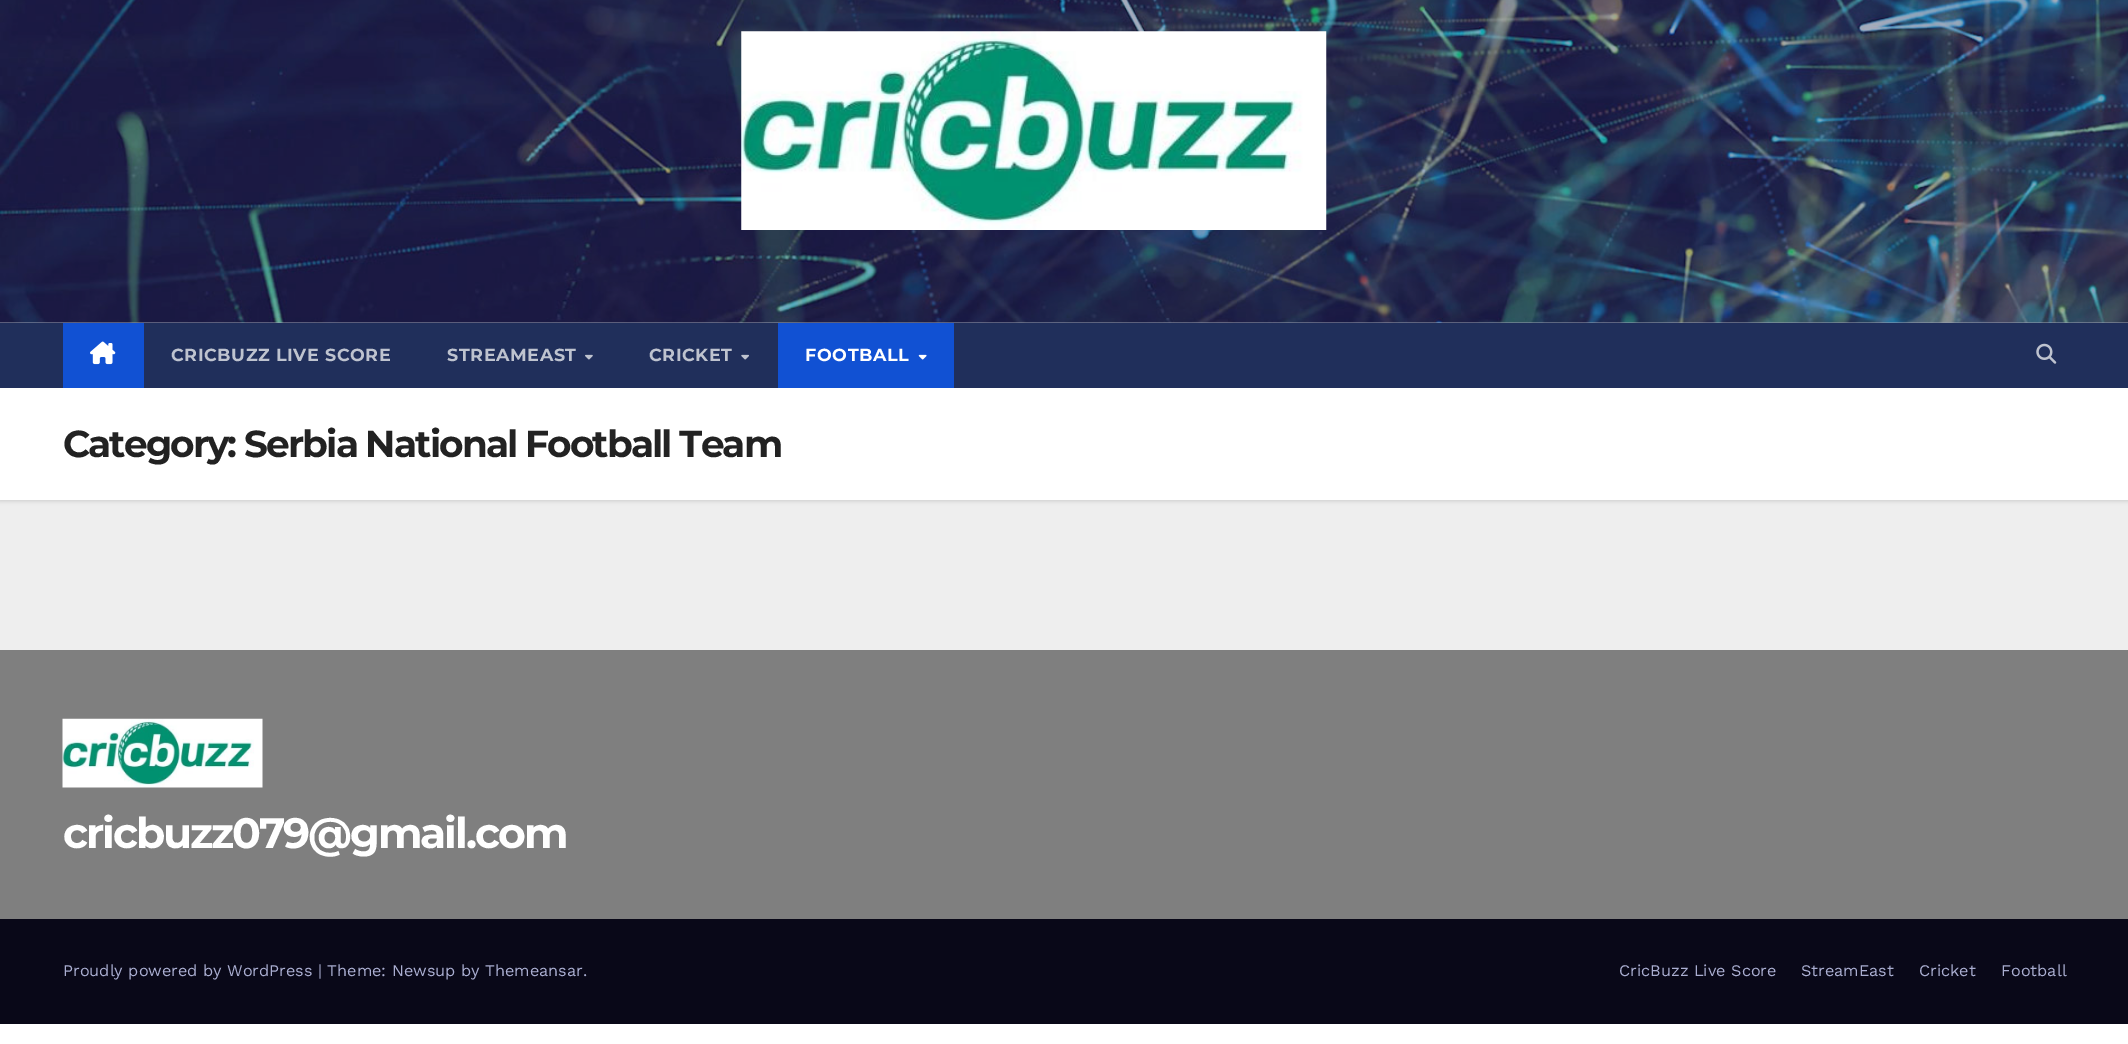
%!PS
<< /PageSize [2128 1044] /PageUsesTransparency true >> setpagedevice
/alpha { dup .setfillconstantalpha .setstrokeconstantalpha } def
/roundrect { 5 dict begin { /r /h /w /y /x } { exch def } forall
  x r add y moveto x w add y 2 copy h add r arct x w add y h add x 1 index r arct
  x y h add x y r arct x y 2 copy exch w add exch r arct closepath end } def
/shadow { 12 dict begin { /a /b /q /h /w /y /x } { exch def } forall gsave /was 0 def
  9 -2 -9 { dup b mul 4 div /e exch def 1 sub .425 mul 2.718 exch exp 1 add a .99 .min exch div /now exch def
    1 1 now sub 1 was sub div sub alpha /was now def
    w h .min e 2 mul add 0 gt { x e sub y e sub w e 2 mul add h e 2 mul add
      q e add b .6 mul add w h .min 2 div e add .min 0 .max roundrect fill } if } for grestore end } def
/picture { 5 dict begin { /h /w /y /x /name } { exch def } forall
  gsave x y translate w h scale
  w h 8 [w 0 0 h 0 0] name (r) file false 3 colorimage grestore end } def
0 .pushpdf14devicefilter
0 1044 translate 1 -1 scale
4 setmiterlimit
1 setgray
0 0 2128 1044 rectfill
0.933 setgray
0 500 2128 150 rectfill
0.612 0.635 0.702 setrgbcolor
0 322 2128 1 rectfill
(img1.rgb) 0 0 2128 323 picture
(img2.rgb) 741 31 586 199 picture
0 setgray
0 389 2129 112 0 2 0.15 shadow
0.125 0.184 0.357 setrgbcolor
0 323 2128 65 rectfill
0.067 0.318 0.827 setrgbcolor
63 323 81 65 rectfill
(img3.rgb) 90 341 26 24 picture
/Montserrat-Bold [17.5 0 0 -17.5 0 0] selectfont
0.745 0.765 0.812 setrgbcolor
171 361 moveto 0.6 0 (CRICBUZZ LIVE SCORE) ashow
447 361 moveto 0.6 0 (STREAMEAST) ashow
(img4.rgb) 585 354 8 6 picture
649 361 moveto 0.6 0 (CRICKET) ashow
(img5.rgb) 741 354 8 6 picture
0.067 0.318 0.827 setrgbcolor
778 323 176 65 rectfill
1 setgray
805 361 moveto 0.6 0 (FOOTBALL) ashow
(img6.rgb) 918 354 9 6 picture
(img7.rgb) 2036 343 21 21 picture
0 388 2128 112 rectfill
/Montserrat-Bold [37.5 0 0 -37.5 0 0] selectfont
0.133 setgray
63 457 moveto -1.9 0 (Category: Serbia National Football Team) ashow
0.498 setgray
0 650 2128 269 rectfill
(img8.rgb) 62 718 201 70 picture
/Montserrat-Bold [42.5 0 0 -42.5 0 0] selectfont
1 setgray
63 848 moveto -2.1 0 (cricbuzz079@gmail.com) ashow
0.035 0.031 0.094 setrgbcolor
0 919 2128 105 rectfill
/WorkSans-Regular [16.25 0 0 -16.25 0 0] selectfont
0.667 0.682 0.82 setrgbcolor
63 976 moveto (Proudly powered by WordPress | Theme: Newsup by Themeansar.) show
1619 976 moveto (CricBuzz Live Score) show
1801 976 moveto (StreamEast) show
1919 976 moveto (Cricket) show
2001 976 moveto (Football) show
.poppdf14devicefilter showpage
